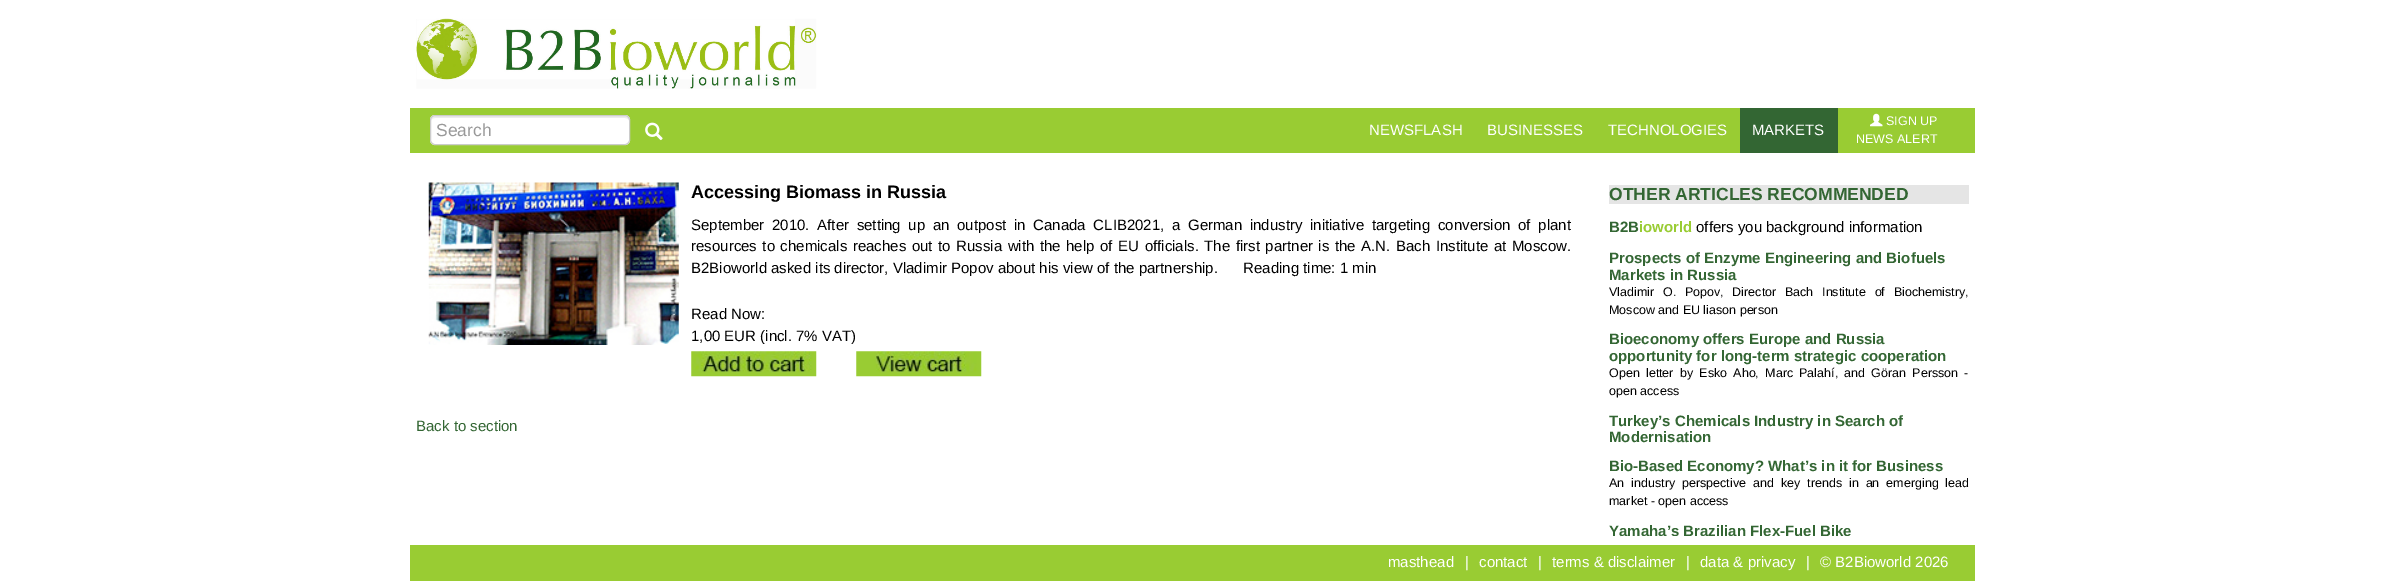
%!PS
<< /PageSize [2385 581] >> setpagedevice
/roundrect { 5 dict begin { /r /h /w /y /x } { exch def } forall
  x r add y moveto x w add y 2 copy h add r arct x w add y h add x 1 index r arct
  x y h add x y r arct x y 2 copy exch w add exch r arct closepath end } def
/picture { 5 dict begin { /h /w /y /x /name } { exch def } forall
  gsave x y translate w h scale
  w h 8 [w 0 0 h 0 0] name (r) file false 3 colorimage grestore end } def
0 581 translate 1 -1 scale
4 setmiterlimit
1 setgray
0 0 2385 581 rectfill
(img1.rgb) 416 18 401 71 picture
0.6 0.8 0.2 setrgbcolor
410 108 1565 45 rectfill
1 setgray
430 115 200 30 5 roundrect fill
0.925 setgray
newpath 435 118 moveto 625 118 lineto 627 118 629 119 629 121 curveto 629 120 lineto 629 118 627 116 625 116 curveto 435 116 lineto 433 116 431 118 431 120 curveto 431 121 lineto 431 119 433 118 435 118 curveto closepath fill
0.8 setgray
430.5 115.5 199 29 4.5 roundrect stroke
/LiberationSans-Regular [17.5 0 0 -17.5 0 0] selectfont
0.6 setgray
436 136 moveto (Search) show
(img2.rgb) 645 122 18 19 picture
/LiberationSans-Regular [15 0 0 -15 0 0] selectfont
1 setgray
1369 135 moveto (NEWSFLASH) show
1487 135 moveto (BUSINESSES) show
1608 135 moveto (TECHNOLOGIES) show
0.2 0.4 0.2 setrgbcolor
1740 108 98 45 rectfill
1 setgray
1752 135 moveto (MARKETS) show
(img3.rgb) 1870 113 13 14 picture
/LiberationSans-Regular [12.5 0 0 -12.5 0 0] selectfont
1886 125 moveto (SIGN UP) show
1856 143 moveto (NEWS ALERT) show
(img4.rgb) 428 182 251 163 picture
/LiberationSans-Bold [18 0 0 -18 0 0] selectfont
0 setgray
691 198 moveto (Accessing Biomass in Russia) show
/LiberationSans-Regular [15 0 0 -15 0 0] selectfont
691 230 moveto 3.5 0 32 (September 2010. After setting up an outpost in Canada CLIB2021, a German industry initiative targeting conversion of plant) widthshow
691 251 moveto 1.4 0 32 (resources to chemicals reaches out to Russia with the help of EU officials. The first partner is the A.N. Bach Institute at Moscow.) widthshow
691 273 moveto (B2Bioworld asked its director, Vladimir Popov about his view of the partnership.) show
1243 273 moveto (Reading time: 1 min) show
691 319 moveto (Read Now:) show
691 341 moveto (1,00 EUR \(incl. 7% VAT\)) show
(img5.rgb) 691 351 126 26 picture
(img6.rgb) 856 351 126 26 picture
0.2 0.4 0.2 setrgbcolor
416 431 moveto (Back to section) show
0.898 setgray
1609 185 360 19 rectfill
/LiberationSans-Bold [17.5 0 0 -17.5 0 0] selectfont
0.2 0.4 0.2 setrgbcolor
1609 200 moveto (OTHER ARTICLES RECOMMENDED) show
/LiberationSans-Bold [15 0 0 -15 0 0] selectfont
1609 232 moveto (B2B) show
0.6 0.8 0.2 setrgbcolor
1639 232 moveto (ioworld) show
/LiberationSans-Regular [15 0 0 -15 0 0] selectfont
0 setgray
1696 232 moveto (offers you background information) show
/LiberationSans-Bold [15 0 0 -15 0 0] selectfont
0.2 0.4 0.2 setrgbcolor
1609 263 moveto (Prospects of Enzyme Engineering and Biofuels) show
1609 280 moveto (Markets in Russia) show
/LiberationSans-Regular [12.5 0 0 -12.5 0 0] selectfont
0 setgray
1609 296 moveto 5.25 0 32 (Vladimir O. Popov, Director Bach Institute of Biochemistry,) widthshow
1609 314 moveto (Moscow and EU liason person) show
/LiberationSans-Bold [15 0 0 -15 0 0] selectfont
0.2 0.4 0.2 setrgbcolor
1609 344 moveto (Bioeconomy offers Europe and Russia) show
1609 361 moveto (opportunity for long-term strategic cooperation) show
/LiberationSans-Regular [12.5 0 0 -12.5 0 0] selectfont
0 setgray
1609 377 moveto 2.75 0 32 (Open letter by Esko Aho, Marc Palahí, and Göran Persson -) widthshow
1609 395 moveto (open access) show
/LiberationSans-Bold [15 0 0 -15 0 0] selectfont
0.2 0.4 0.2 setrgbcolor
1609 426 moveto (Turkey’s Chemicals Industry in Search of) show
1609 442 moveto (Modernisation) show
1609 471 moveto (Bio-Based Economy? What’s in it for Business) show
/LiberationSans-Regular [12.5 0 0 -12.5 0 0] selectfont
0 setgray
1609 487 moveto 3.5 0 32 (An industry perspective and key trends in an emerging lead) widthshow
1609 505 moveto (market - open access) show
/LiberationSans-Bold [15 0 0 -15 0 0] selectfont
0.2 0.4 0.2 setrgbcolor
1609 536 moveto (Yamaha’s Brazilian Flex-Fuel Bike) show
1 setgray
1621 536 228 1 rectfill
0.6 0.8 0.2 setrgbcolor
410 545 1565 36 rectfill
/LiberationSans-Regular [15 0 0 -15 0 0] selectfont
1 setgray
1388 567 moveto (masthead) show
1465 567 moveto (|) show
1479 567 moveto (contact) show
1538 567 moveto (|) show
1552 567 moveto (terms & disclaimer) show
1686 567 moveto (|) show
1700 567 moveto (data & privacy) show
1806 567 moveto (|) show
1820 567 moveto (© B2Bioworld 2026) show
showpage
